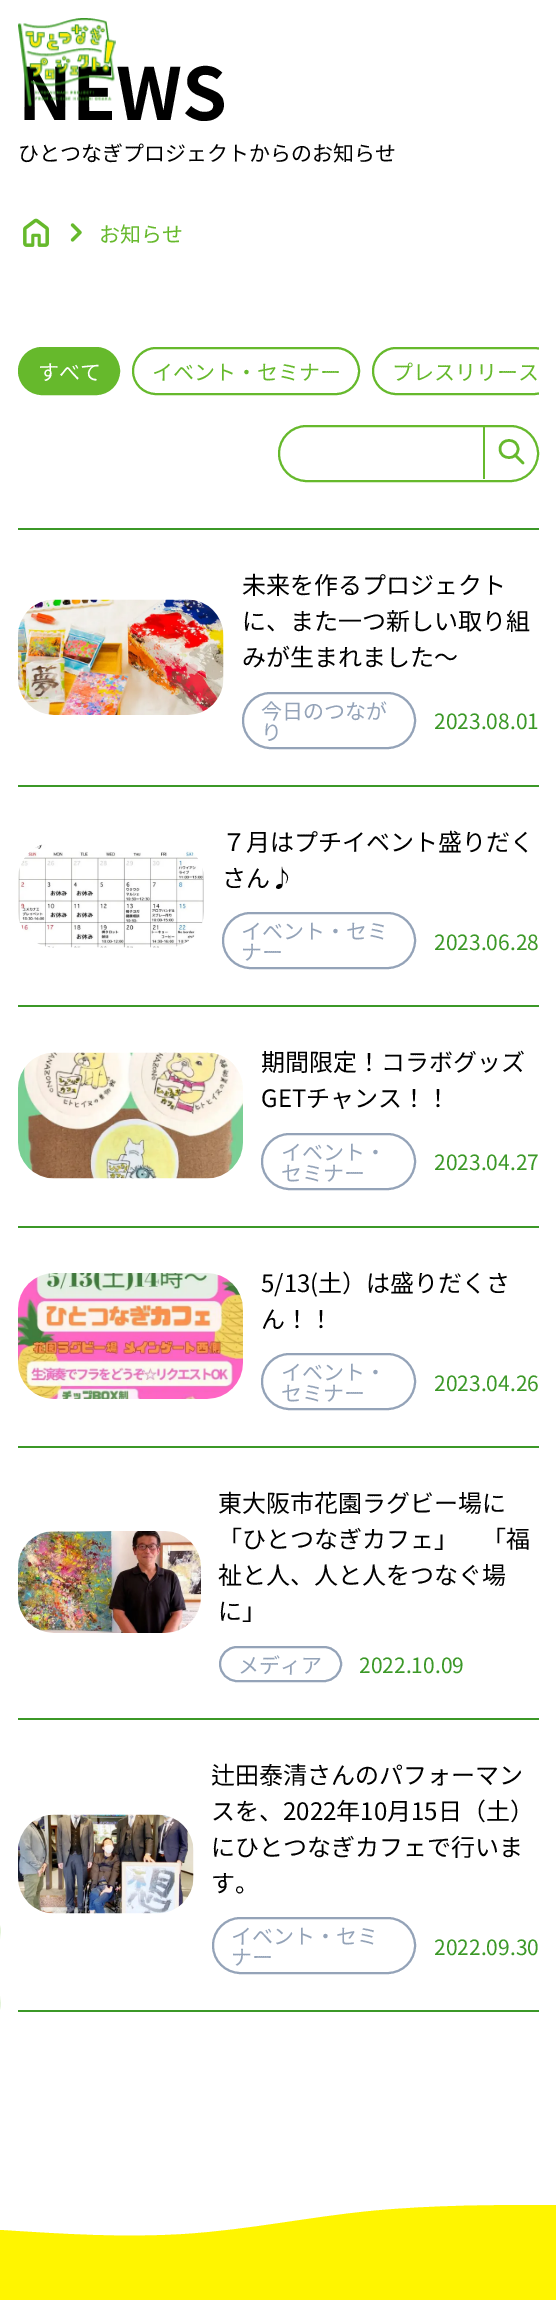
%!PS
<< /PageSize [556 2300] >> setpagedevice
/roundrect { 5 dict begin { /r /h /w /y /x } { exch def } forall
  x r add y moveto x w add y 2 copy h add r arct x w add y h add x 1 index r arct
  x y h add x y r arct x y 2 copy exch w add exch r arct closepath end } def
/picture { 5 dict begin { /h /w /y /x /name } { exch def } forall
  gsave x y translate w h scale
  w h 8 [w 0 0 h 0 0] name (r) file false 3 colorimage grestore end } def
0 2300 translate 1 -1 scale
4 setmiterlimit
1 setgray
0 0 556 2300 rectfill
/NotoSansJP-Bold [72 0 0 -72 0 0] selectfont
0 setgray
18 120 moveto (NEWS) show
(img1.rgb) 18 18 98 89 picture
(img2.rgb) 0 1925 1 85 picture
/NotoSansJP-Regular [21 0 0 -21 0 0] selectfont
18 161 moveto (ひとつなぎプロジェクトからのお知らせ) show
(img3.rgb) 23 218 26 29 picture
(img4.rgb) 70 223 12 19 picture
0.4 0.725 0.173 setrgbcolor
99 242 moveto (お知らせ) show
19 348 100 46 23 roundrect gsave fill grestore
2 setlinewidth
stroke
1 setgray
38 380 moveto (すべて) show
0.4 0.725 0.173 setrgbcolor
133 348 226 46 23 roundrect stroke
152 380 moveto (イベント・セミナー) show
gsave
18 347 521 60 rectclip
373 348 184 46 23 roundrect stroke
grestore
392 380 moveto (プレスリリース) show
279 426 259 55 27.5 roundrect stroke
483 425 2 54 rectfill
2.5 setlinewidth
1 setlinecap
1 setlinejoin
newpath 523 463 moveto 515 455 lineto 518 449 moveto 518 460.5 500 460.5 500 449 curveto 500 437.5 518 437.5 518 449 curveto closepath stroke
0.231 0.596 0.153 setrgbcolor
18 528 521 2 rectfill
18 785 521 2 rectfill
(img5.rgb) 18 599 206 116 picture
/NotoSansJP-Regular [24 0 0 -24 0 0] selectfont
0 setgray
242 594 moveto (未来を作るプロジェクト) show
242 630 moveto (に、また一つ新しい取り組) show
242 666 moveto (みが生まれました～) show
0.58 0.639 0.722 setrgbcolor
2 setlinewidth
0 setlinecap
0 setlinejoin
243 693 172 55 27.5 roundrect stroke
/NotoSansJP-Regular [21 0 0 -21 0 0] selectfont
261 719 moveto (今日のつなが) show
261 740 moveto (り) show
0.231 0.596 0.153 setrgbcolor
434 729 moveto (2023.08.01) show
18 1005 521 2 rectfill
(img6.rgb) 18 844 186 104 picture
/NotoSansJP-Regular [24 0 0 -24 0 0] selectfont
0 setgray
222 851 moveto (７月はプチイベント盛りだく) show
222 887 moveto (さん♪) show
0.58 0.639 0.722 setrgbcolor
223 913 192 55 27.5 roundrect stroke
/NotoSansJP-Regular [21 0 0 -21 0 0] selectfont
241 939 moveto (イベント・セミ) show
241 960 moveto (ナー) show
0.231 0.596 0.153 setrgbcolor
434 950 moveto (2023.06.28) show
18 1226 521 2 rectfill
(img7.rgb) 18 1052 225 127 picture
/NotoSansJP-Regular [24 0 0 -24 0 0] selectfont
0 setgray
261 1071 moveto (期間限定！コラボグッズ) show
261 1107 moveto (GETチャンス！！) show
0.58 0.639 0.722 setrgbcolor
262 1134 153 55 27.5 roundrect stroke
/NotoSansJP-Regular [21 0 0 -21 0 0] selectfont
281 1160 moveto (イベント・) show
281 1181 moveto (セミナー) show
0.231 0.596 0.153 setrgbcolor
434 1170 moveto (2023.04.27) show
18 1446 521 2 rectfill
(img8.rgb) 18 1273 225 126 picture
/NotoSansJP-Regular [24 0 0 -24 0 0] selectfont
0 setgray
261 1292 moveto (5/13\(土）は盛りだくさ) show
261 1328 moveto (ん！！) show
0.58 0.639 0.722 setrgbcolor
262 1354 153 55 27.5 roundrect stroke
/NotoSansJP-Regular [21 0 0 -21 0 0] selectfont
281 1380 moveto (イベント・) show
281 1401 moveto (セミナー) show
0.231 0.596 0.153 setrgbcolor
434 1391 moveto (2023.04.26) show
18 1718 521 2 rectfill
(img9.rgb) 18 1531 183 102 picture
/NotoSansJP-Regular [24 0 0 -24 0 0] selectfont
0 setgray
218 1512 moveto (東大阪市花園ラグビー場に) show
218 1548 moveto (「ひとつなぎカフェ」　「福) show
218 1584 moveto (祉と人、人と人をつなぐ場) show
218 1620 moveto (に」) show
0.58 0.639 0.722 setrgbcolor
220 1647 121 34 17 roundrect stroke
/NotoSansJP-Regular [21 0 0 -21 0 0] selectfont
238 1673 moveto (メディア) show
0.231 0.596 0.153 setrgbcolor
359 1673 moveto (2022.10.09) show
18 2010 521 2 rectfill
(img10.rgb) 18 1814 176 100 picture
/NotoSansJP-Regular [24 0 0 -24 0 0] selectfont
0 setgray
211 1784 moveto (辻田泰清さんのパフォーマン) show
211 1820 moveto (スを、2022年10月15日（土）) show
211 1856 moveto (にひとつなぎカフェで行いま) show
211 1892 moveto (す。) show
0.58 0.639 0.722 setrgbcolor
213 1918 202 55 27.5 roundrect stroke
/NotoSansJP-Regular [21 0 0 -21 0 0] selectfont
231 1944 moveto (イベント・セミ) show
231 1965 moveto (ナー) show
0.231 0.596 0.153 setrgbcolor
434 1955 moveto (2022.09.30) show
1 0.961 0 setrgbcolor
newpath 0 2230 moveto 62 2234 124 2238 185 2234 curveto 248 2230 309 2217 371 2211 curveto 433 2205 495 2205 556 2205 curveto 556 2279 lineto 0 2279 lineto closepath fill
0 2279 556 21 rectfill
showpage
